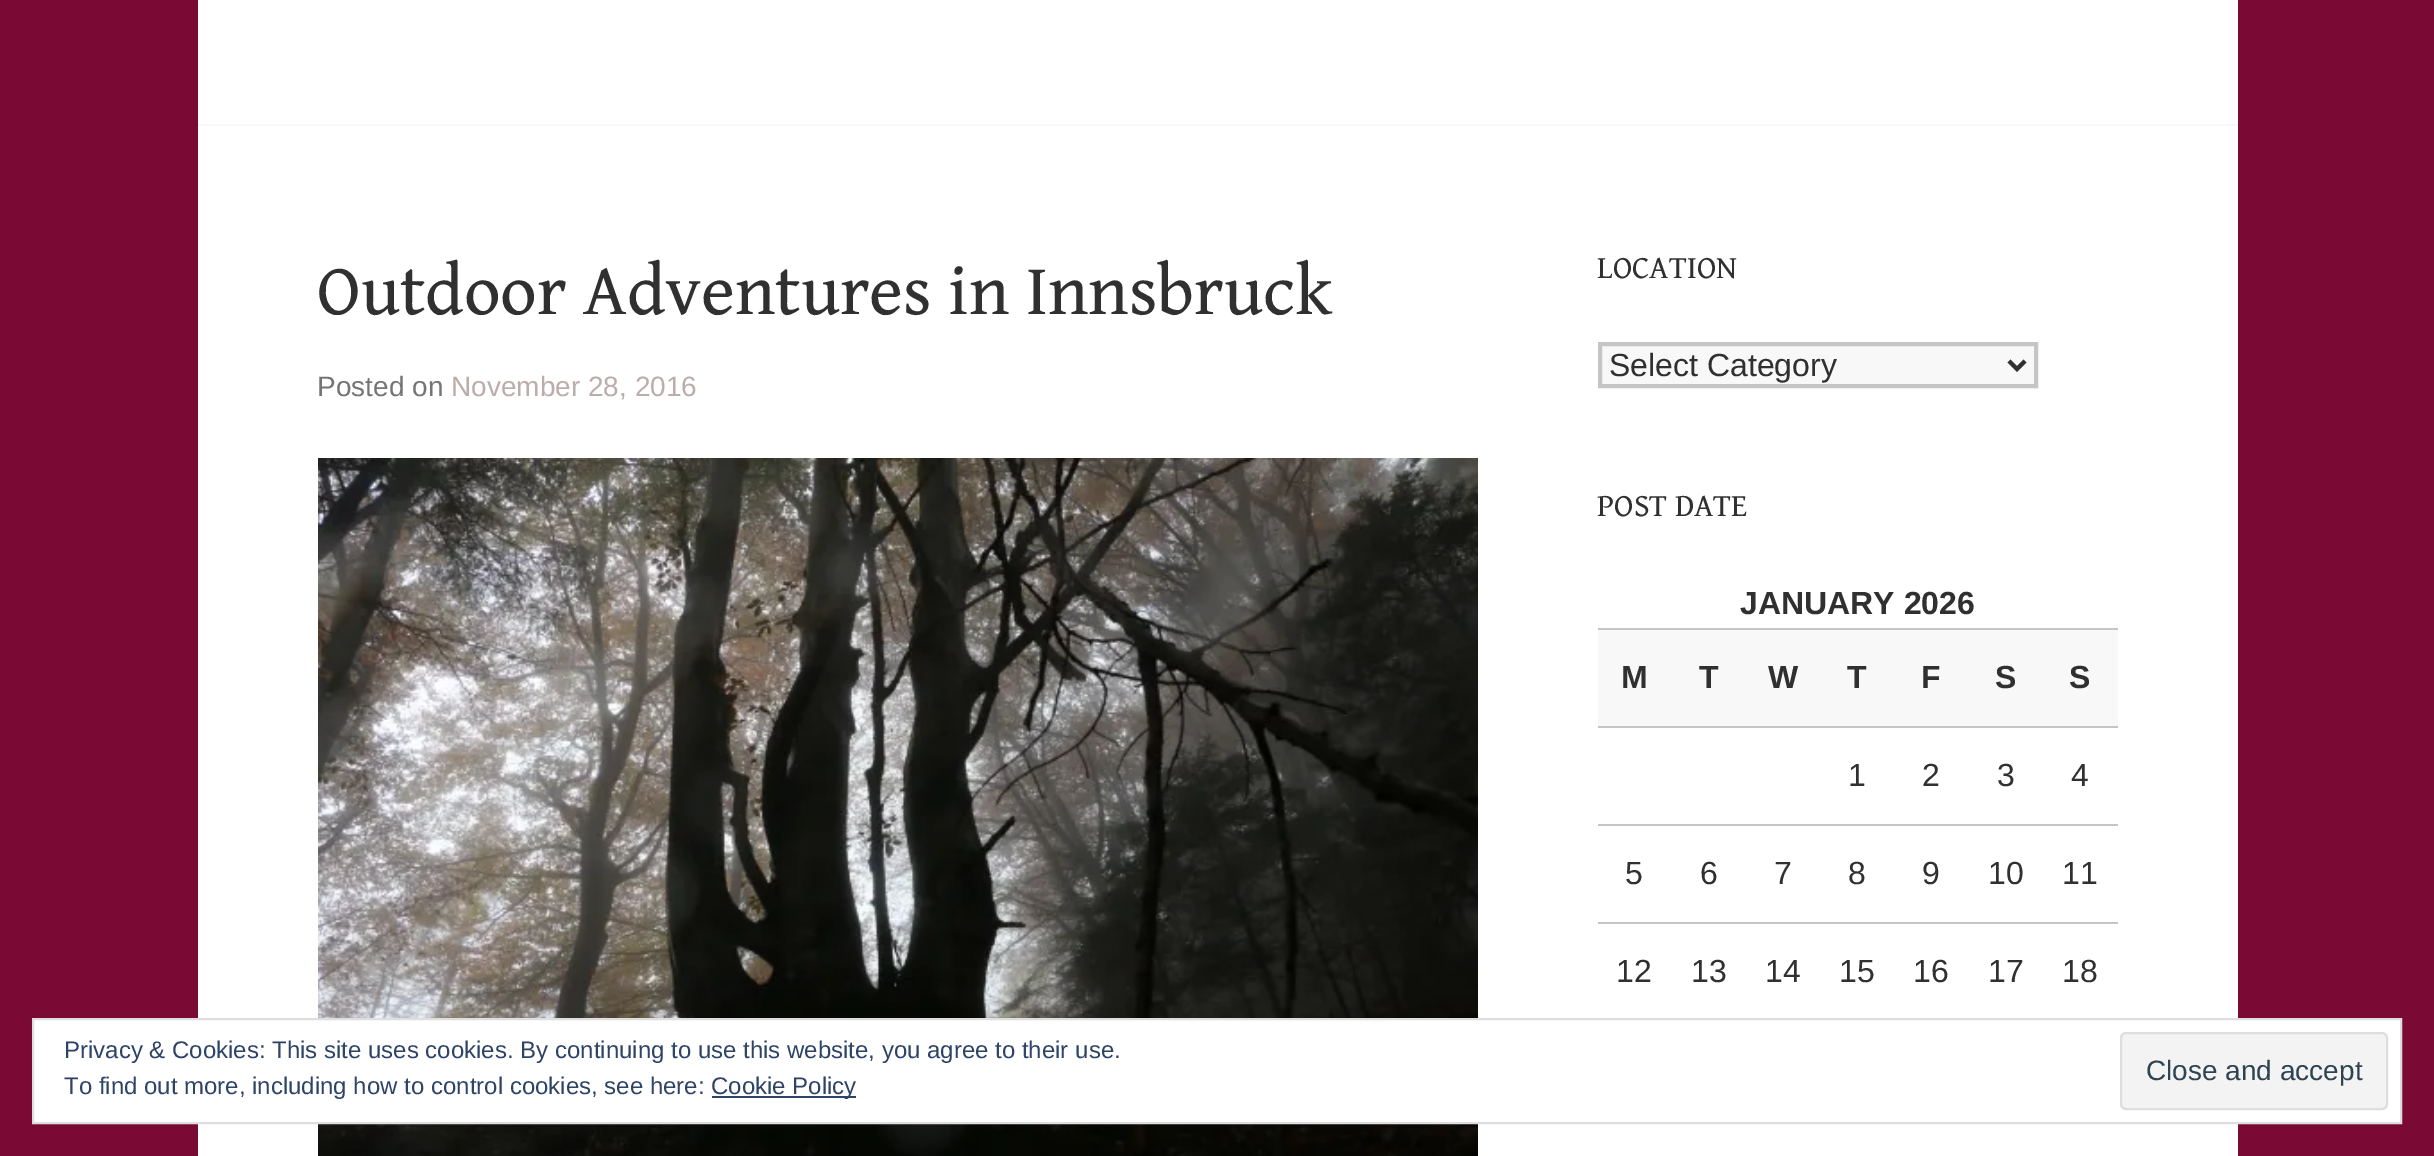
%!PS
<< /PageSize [2434 1156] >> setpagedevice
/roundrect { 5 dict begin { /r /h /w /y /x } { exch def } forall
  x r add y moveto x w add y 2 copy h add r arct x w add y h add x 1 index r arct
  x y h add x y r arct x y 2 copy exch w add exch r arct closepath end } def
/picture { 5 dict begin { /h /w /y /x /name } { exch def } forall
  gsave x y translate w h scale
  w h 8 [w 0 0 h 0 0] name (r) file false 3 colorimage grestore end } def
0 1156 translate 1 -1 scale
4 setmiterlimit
0.478 0.035 0.204 setrgbcolor
0 0 2434 1156 rectfill
1 setgray
198 0 2040 1156 rectfill
0.973 setgray
198 124 2040 2 rectfill
/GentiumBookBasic-Regular [72 0 0 -72 0 0] selectfont
0.188 setgray
317 314 moveto (Outdoor Adventures in Innsbruck) show
/Arimo-Regular [28 0 0 -28 0 0] selectfont
0.459 setgray
317 396 moveto (Posted on) show
0.741 0.675 0.675 setrgbcolor
451 396 moveto (November 28, 2016) show
(img1.rgb) 318 458 1160 698 picture
/GentiumBookBasic-Regular [32 0 0 -32 0 0] selectfont
0.188 setgray
1597 278 moveto (LOCATION) show
0.973 setgray
newpath 1600 344 moveto 2036 344 lineto 2036 386 lineto 1600 386 lineto closepath gsave fill grestore
0.773 setgray
4 setlinewidth
stroke
0.188 setgray
newpath 2009 361 moveto 2017 369 lineto 2025 361 lineto stroke
/Arimo-Regular [32 0 0 -32 0 0] selectfont
1609 376 moveto (Select Category) show
/GentiumBookBasic-Regular [32 0 0 -32 0 0] selectfont
1597 516 moveto (POST DATE) show
/Arimo-Bold [32 0 0 -32 0 0] selectfont
1740 614 moveto (JANUARY 2026) show
0.973 setgray
1598 630 520 96 rectfill
0.773 setgray
1598 628 520 2 rectfill
1598 726 520 2 rectfill
0.188 setgray
1621 688 moveto (M) show
1699 688 moveto (T) show
1768 688 moveto (W) show
1847 688 moveto (T) show
1921 688 moveto (F) show
1995 688 moveto (S) show
2069 688 moveto (S) show
/Arimo-Regular [32 0 0 -32 0 0] selectfont
1848 786 moveto (1) show
1922 786 moveto (2) show
1997 786 moveto (3) show
2071 786 moveto (4) show
0.773 setgray
1598 824 520 2 rectfill
1598 922 520 2 rectfill
0.188 setgray
1625 884 moveto (5) show
1700 884 moveto (6) show
1774 884 moveto (7) show
1848 884 moveto (8) show
1922 884 moveto (9) show
1988 884 moveto (10) show
2062 884 moveto (11) show
1616 982 moveto (12) show
1691 982 moveto (13) show
1765 982 moveto (14) show
1839 982 moveto (15) show
1913 982 moveto (16) show
1988 982 moveto (17) show
2062 982 moveto (18) show
1 setgray
newpath 33 1019 moveto 2401 1019 lineto 2401 1123 lineto 33 1123 lineto closepath gsave fill grestore
0.871 setgray
2 setlinewidth
stroke
/Arimo-Regular [24 0 0 -24 0 0] selectfont
0.18 0.267 0.404 setrgbcolor
64 1058 moveto (Privacy & Cookies: This site uses cookies. By continuing to use this website, you agree to their use.) show
64 1094 moveto (To find out more, including how to control cookies, see here:) show
712 1096 144 2 rectfill
711 1094 moveto (Cookie Policy) show
0.953 setgray
2121 1033 266 76 5 roundrect gsave fill grestore
0.871 setgray
stroke
/Arimo-Regular [28 0 0 -28 0 0] selectfont
0.18 0.267 0.325 setrgbcolor
2146 1080 moveto (Close and accept) show
showpage
